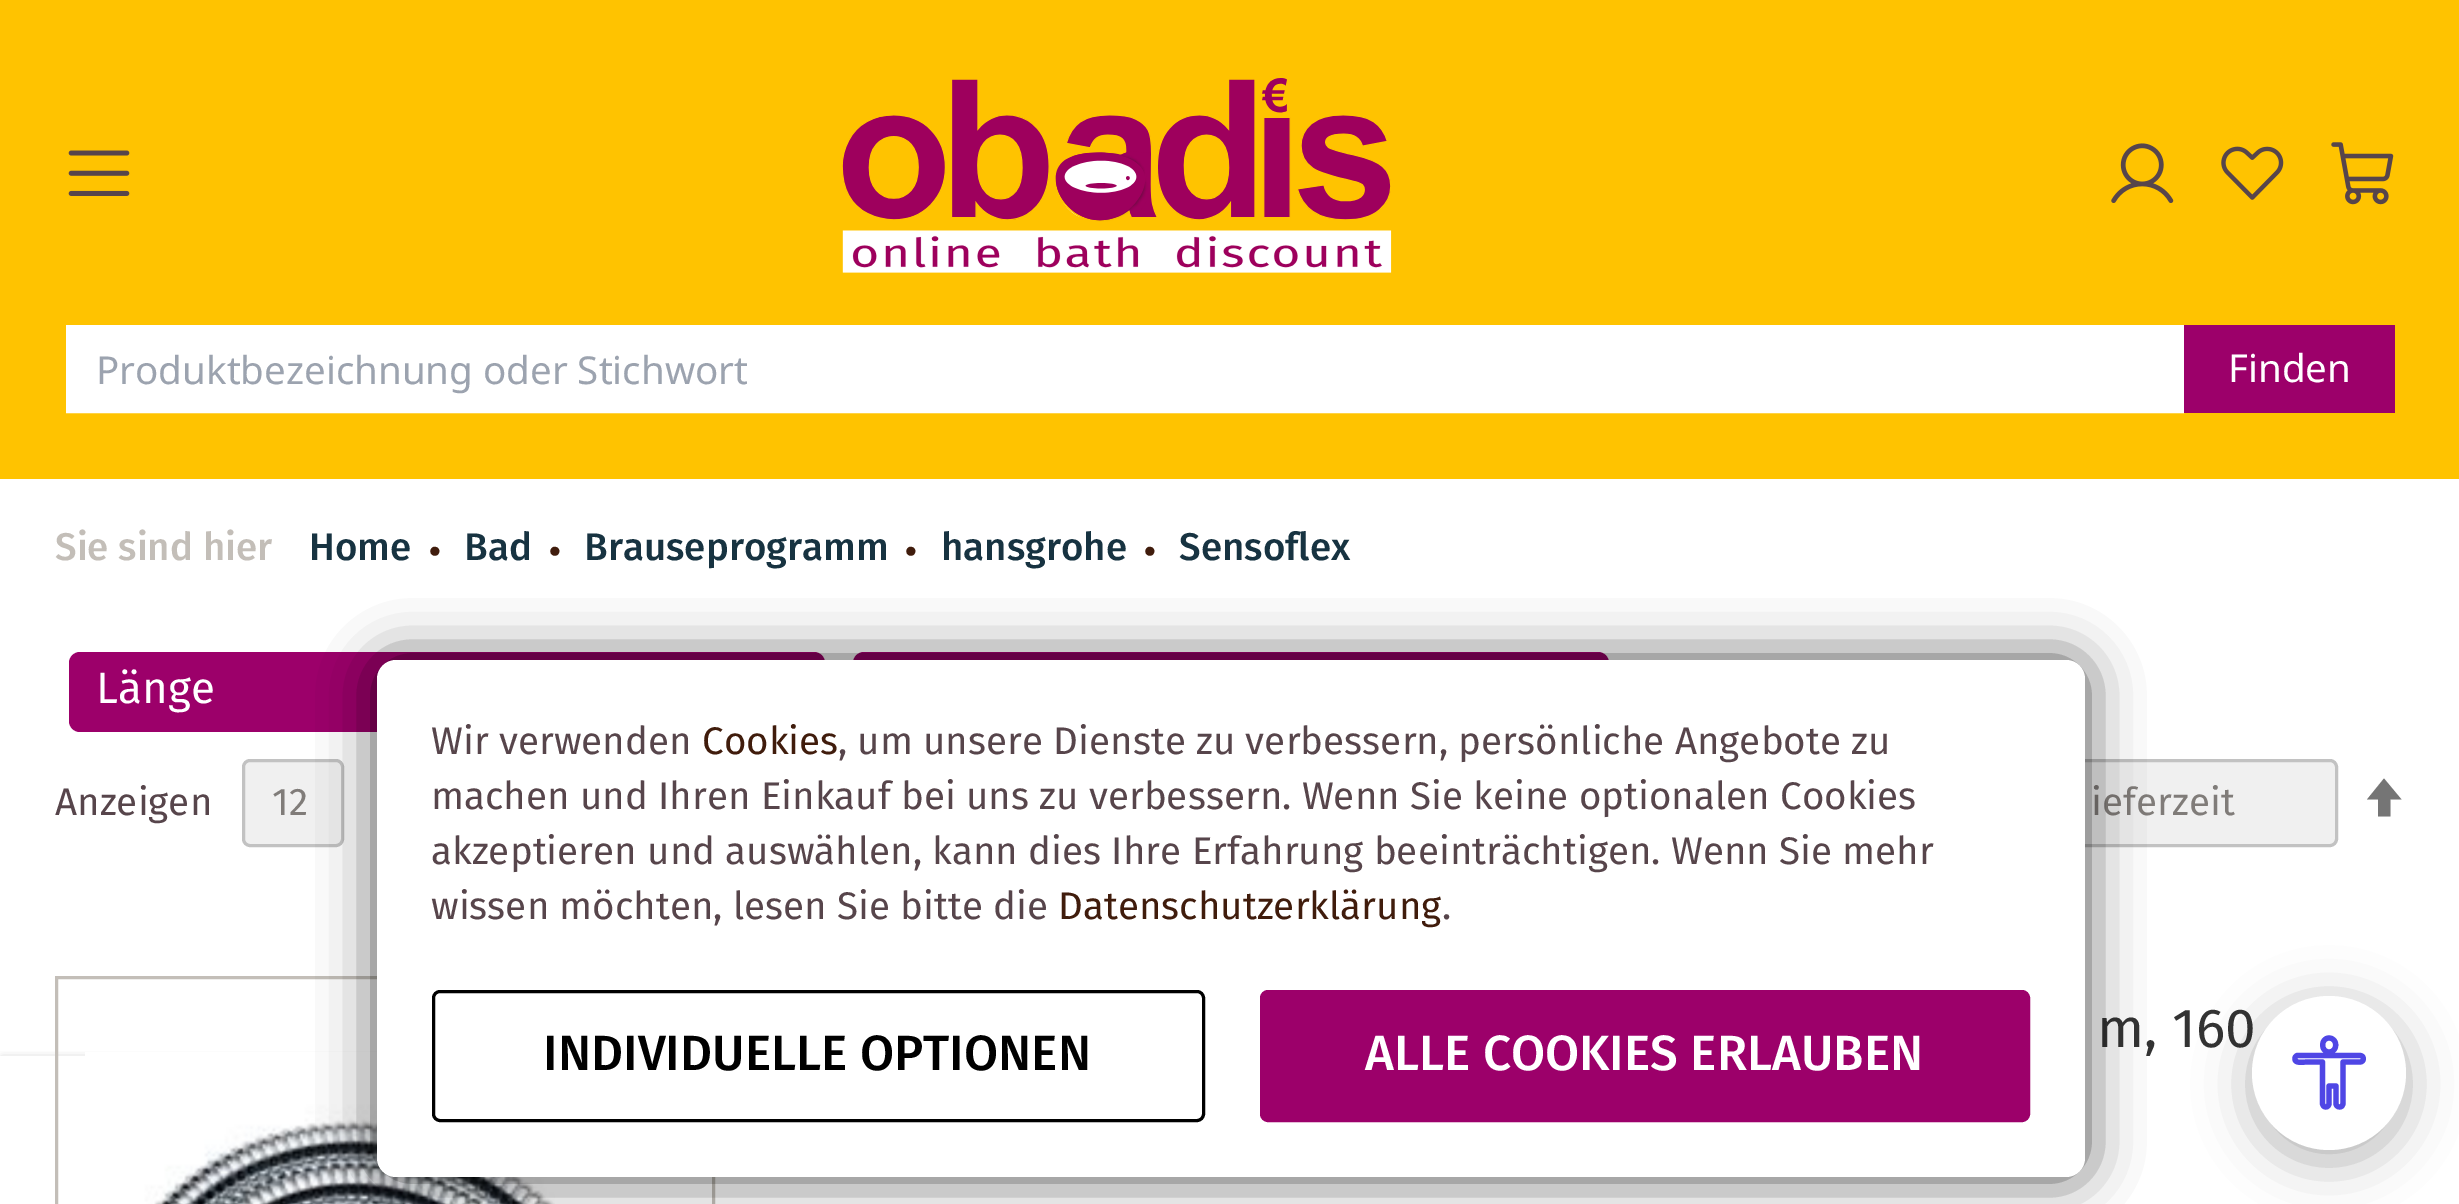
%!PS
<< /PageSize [2459 1204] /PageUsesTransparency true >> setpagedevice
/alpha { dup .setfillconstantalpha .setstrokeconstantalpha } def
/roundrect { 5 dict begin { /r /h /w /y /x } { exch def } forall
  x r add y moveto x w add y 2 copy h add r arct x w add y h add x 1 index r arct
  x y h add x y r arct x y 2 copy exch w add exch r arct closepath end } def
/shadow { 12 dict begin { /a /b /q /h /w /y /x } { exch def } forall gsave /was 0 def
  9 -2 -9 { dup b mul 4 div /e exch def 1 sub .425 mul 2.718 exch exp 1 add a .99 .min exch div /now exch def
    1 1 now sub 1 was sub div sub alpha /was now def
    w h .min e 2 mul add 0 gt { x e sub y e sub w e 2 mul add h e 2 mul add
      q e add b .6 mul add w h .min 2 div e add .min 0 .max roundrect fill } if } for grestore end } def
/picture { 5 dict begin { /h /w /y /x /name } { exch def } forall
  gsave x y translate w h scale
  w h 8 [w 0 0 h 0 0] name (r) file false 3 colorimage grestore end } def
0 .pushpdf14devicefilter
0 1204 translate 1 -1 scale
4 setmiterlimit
1 setgray
0 0 2459 1204 rectfill
1 0.765 0 setrgbcolor
0 0 2459 479 rectfill
(img1.rgb) 68 150 62 46 picture
(img2.rgb) 842 78 550 195 picture
(img3.rgb) 2111 143 63 60 picture
(img4.rgb) 2221 146 63 54 picture
(img5.rgb) 2331 142 63 63 picture
1 setgray
newpath 67.5 326.5 moveto 2182.5 326.5 lineto 2182.5 411.5 lineto 67.5 411.5 lineto closepath gsave fill grestore
3 setlinewidth
stroke
/NotoSans-Regular [38.5 0 0 -38.5 0 0] selectfont
0.612 0.639 0.686 setrgbcolor
96 384 moveto (Produktbezeichnung oder Stichwort) show
0.612 0 0.416 setrgbcolor
2184 325 211 88 rectfill
1 setgray
2228 382 moveto (Finden) show
/FiraSans-Medium [38.5 0 0 -38.5 0 0] selectfont
0.765 0.745 0.722 setrgbcolor
55 560 moveto (Sie sind hier) show
0.09 0.2 0.255 setrgbcolor
309 560 moveto (Home) show
/FiraSans-Regular [66 0 0 -66 0 0] selectfont
0.251 0.11 0.047 setrgbcolor
427 555 moveto (.) show
/FiraSans-Medium [38.5 0 0 -38.5 0 0] selectfont
0.09 0.2 0.255 setrgbcolor
464 560 moveto (Bad) show
/FiraSans-Regular [66 0 0 -66 0 0] selectfont
0.251 0.11 0.047 setrgbcolor
547 555 moveto (.) show
/FiraSans-Medium [38.5 0 0 -38.5 0 0] selectfont
0.09 0.2 0.255 setrgbcolor
584 560 moveto (Brauseprogramm) show
/FiraSans-Regular [66 0 0 -66 0 0] selectfont
0.251 0.11 0.047 setrgbcolor
903 555 moveto (.) show
/FiraSans-Medium [38.5 0 0 -38.5 0 0] selectfont
0.09 0.2 0.255 setrgbcolor
941 560 moveto (hansgrohe) show
/FiraSans-Regular [66 0 0 -66 0 0] selectfont
0.251 0.11 0.047 setrgbcolor
1142 555 moveto (.) show
/FiraSans-Medium [38.5 0 0 -38.5 0 0] selectfont
0.09 0.2 0.255 setrgbcolor
1179 560 moveto (Sensoflex) show
0.612 0 0.416 setrgbcolor
69 652 756 80 11 roundrect fill
/FiraSans-Regular [44 0 0 -44 0 0] selectfont
1 setgray
96 703 moveto (Länge) show
0.612 0 0.416 setrgbcolor
853 652 756 80 11 roundrect fill
/FiraSans-Regular [38.5 0 0 -38.5 0 0] selectfont
0.341 0.271 0.294 setrgbcolor
55 815 moveto (Anzeigen) show
0.941 setgray
243.5 760.5 99 85 6.5 roundrect gsave fill grestore
0.761 setgray
stroke
0.502 0.486 0.475 setrgbcolor
272 815 moveto (12) show
0.941 setgray
2042.5 760.5 294 85 6.5 roundrect gsave fill grestore
0.761 setgray
stroke
0.502 0.486 0.475 setrgbcolor
2091 815 moveto (ieferzeit) show
0.459 setgray
newpath 2384 778.5 moveto 2367 799.5 lineto 2378 799.5 lineto 2378 816.5 lineto 2390.5 816.5 lineto 2390.5 799.5 lineto 2401.5 799.5 lineto closepath fill
gsave
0 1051 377 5 rectclip
0.635 setgray
3 1059 454 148 0 4 1 shadow
grestore
0.765 0.745 0.722 setrgbcolor
56.5 977.5 657 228 rectstroke
(img6.rgb) 85 1052 470 152 picture
/FiraSans-Regular [55 0 0 -55 0 0] selectfont
0.2 setgray
2097 1047 moveto (m, 160) show
0.004 setgray
377 660 1708 517 19 27.5 0.7 shadow
1 setgray
377 660 1708 517 19 roundrect fill
/FiraSans-Regular [38.5 0 0 -38.5 0 0] selectfont
0.341 0.271 0.294 setrgbcolor
431 754 moveto (Wir verwenden) show
0.251 0.11 0.047 setrgbcolor
702 754 moveto (Cookies) show
0.341 0.271 0.294 setrgbcolor
838 754 moveto (, um unsere Dienste zu verbessern, persönliche Angebote zu) show
431 809 moveto (machen und Ihren Einkauf bei uns zu verbessern. Wenn Sie keine optionalen Cookies) show
431 864 moveto (akzeptieren und auswählen, kann dies Ihre Erfahrung beeinträchtigen. Wenn Sie mehr) show
431 919 moveto (wissen möchten, lesen Sie bitte die) show
0.251 0.11 0.047 setrgbcolor
1058 919 moveto (Datenschutzerklärung) show
0.341 0.271 0.294 setrgbcolor
1442 919 moveto (.) show
0 setgray
433.5 991.5 770 129 6.5 roundrect stroke
/FiraSans-Medium [49.5 0 0 -49.5 0 0] selectfont
543 1070 moveto (INDIVIDUELLE OPTIONEN) show
0.612 0 0.416 setrgbcolor
1261.5 991.5 767 129 6.5 roundrect gsave fill grestore
stroke
1 setgray
1365 1070 moveto (ALLE COOKIES ERLAUBEN) show
0 setgray
2252 1007 154 154 77 27.5 0.3 shadow
1 setgray
newpath 2329 1073 77 0 360 arc closepath fill
0.31 0.275 0.898 setrgbcolor
5.2 setlinewidth
1 setlinecap
1 setlinejoin
newpath 2329 1038 moveto 2338 1038 2338 1052 2329 1052 curveto 2320.5 1052 2320.5 1038 2329 1038 curveto closepath 2360 1062 moveto 2343 1062 lineto 2343 1104 lineto 2342 1106 lineto 2340 1108 2336.5 1107 2336 1104 curveto 2336 1086 lineto 2329 1086 lineto 2329 1104 lineto 2328.5 1107 2325.5 1108 2323.5 1106 curveto 2322.5 1104 lineto 2322.5 1062 lineto 2306.5 1062 lineto 2304 1062 2293.5 1064 2295 1058 curveto 2295 1057 2296 1056 2297 1055.5 curveto 2360 1055.5 lineto 2364.5 1055.5 2364.5 1062 2360 1062 curveto closepath stroke
.poppdf14devicefilter showpage
